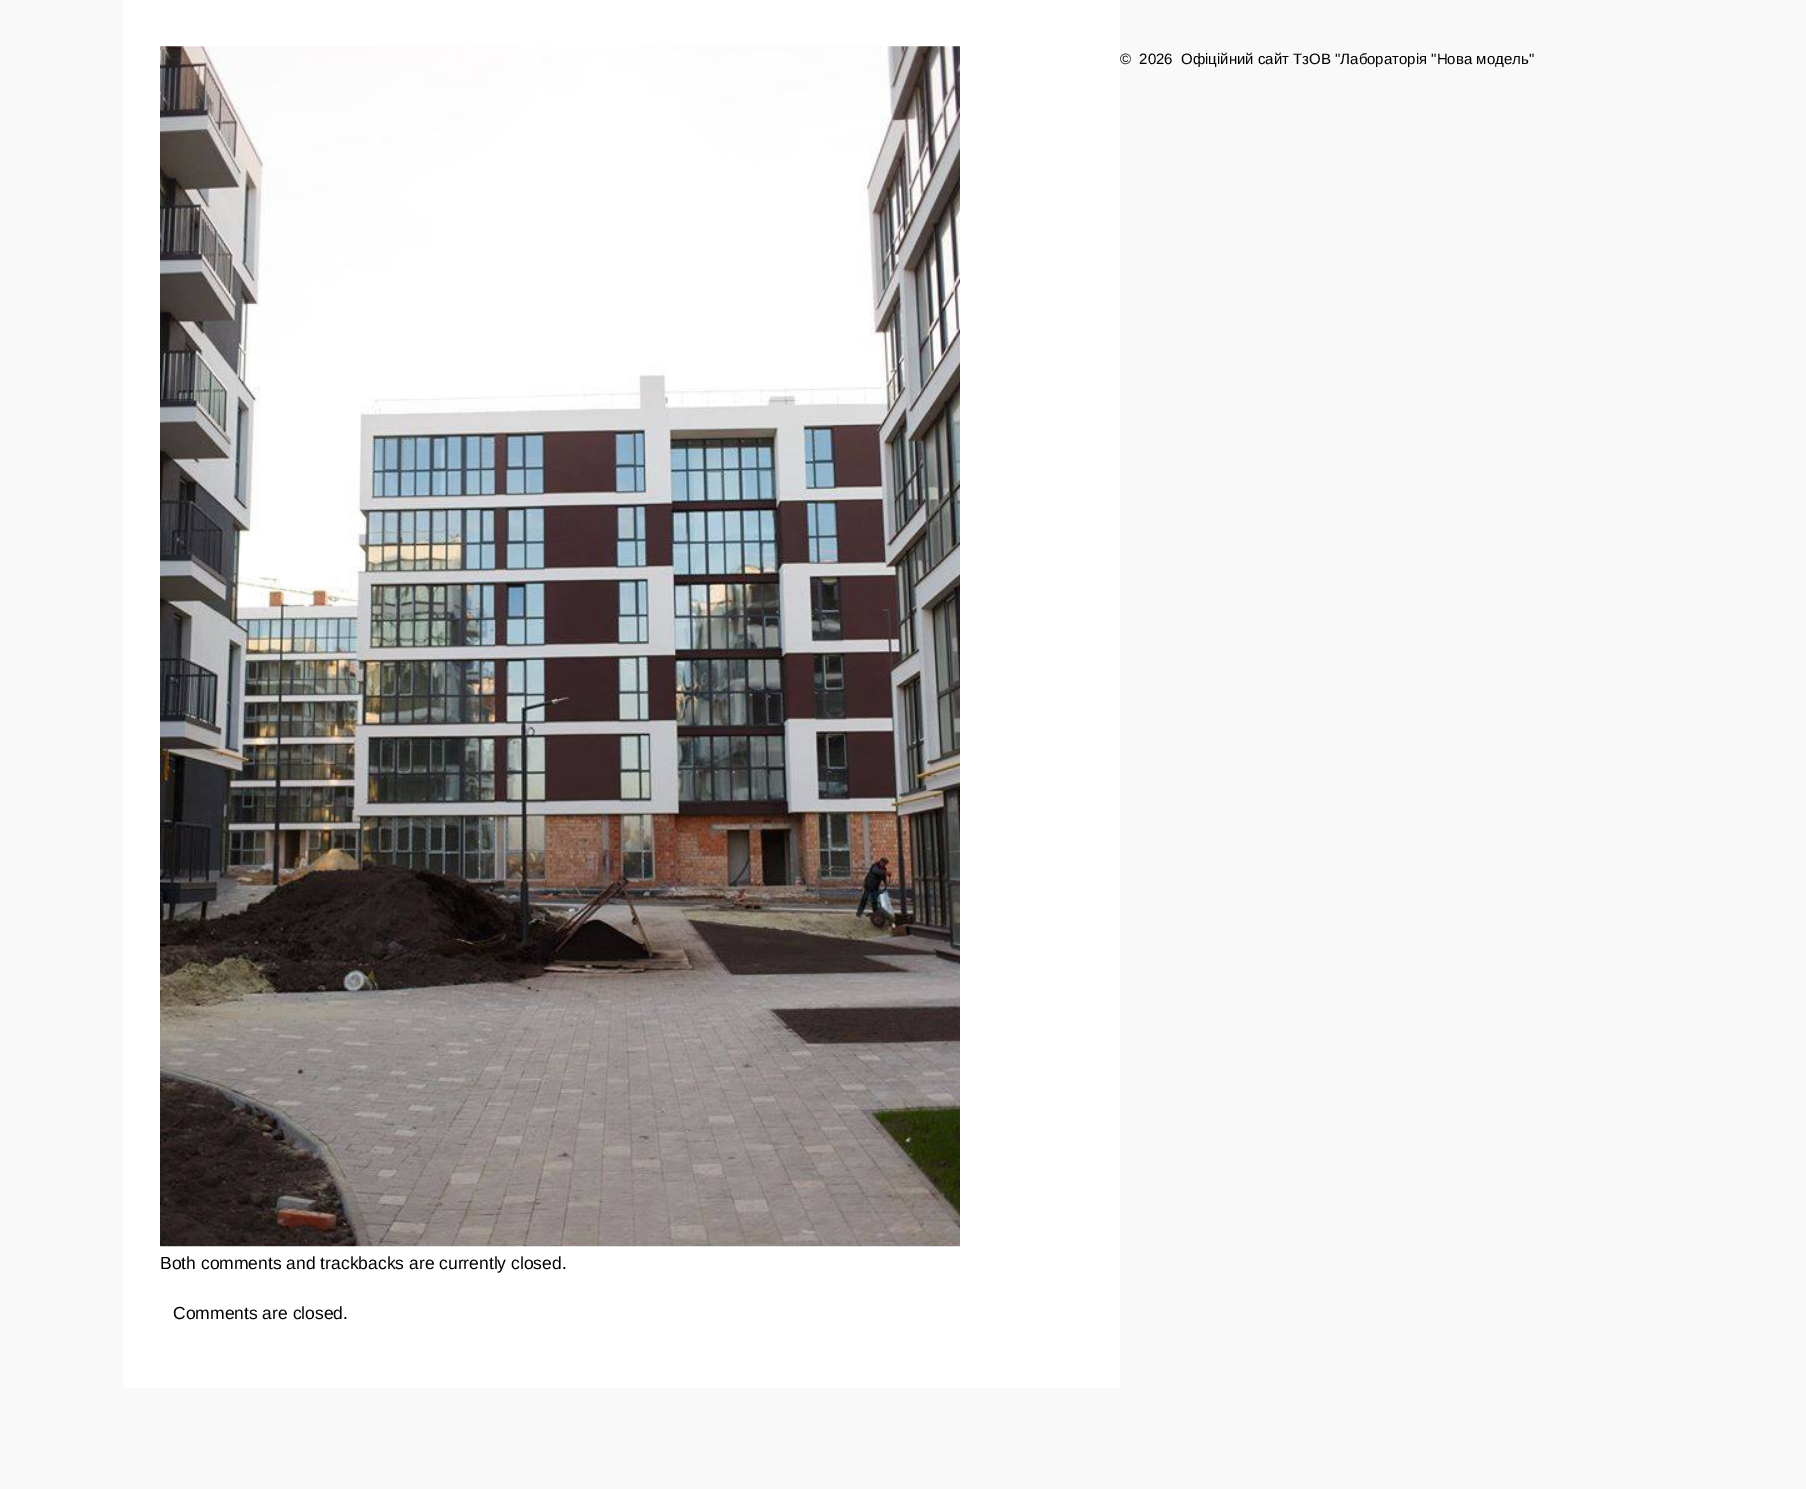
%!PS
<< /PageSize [1806 1489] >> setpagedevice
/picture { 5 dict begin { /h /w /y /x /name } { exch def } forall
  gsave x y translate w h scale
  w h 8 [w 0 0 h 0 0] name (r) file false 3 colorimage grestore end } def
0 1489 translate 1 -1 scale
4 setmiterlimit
0.976 setgray
0 0 1806 1489 rectfill
/LiberationSans-Regular [15 0 0 -15 0 0] selectfont
0 setgray
1120 64 moveto (©  2026  Офіційний сайт ТзОВ "Лабораторія "Нова модель") show
1 setgray
123 0 997 1388 rectfill
(img1.rgb) 160 46 800 1201 picture
/LiberationSans-Regular [17.5 0 0 -17.5 0 0] selectfont
0 setgray
160 1269 moveto (Both comments and trackbacks are currently closed.) show
173 1319 moveto (Comments are closed.) show
showpage
